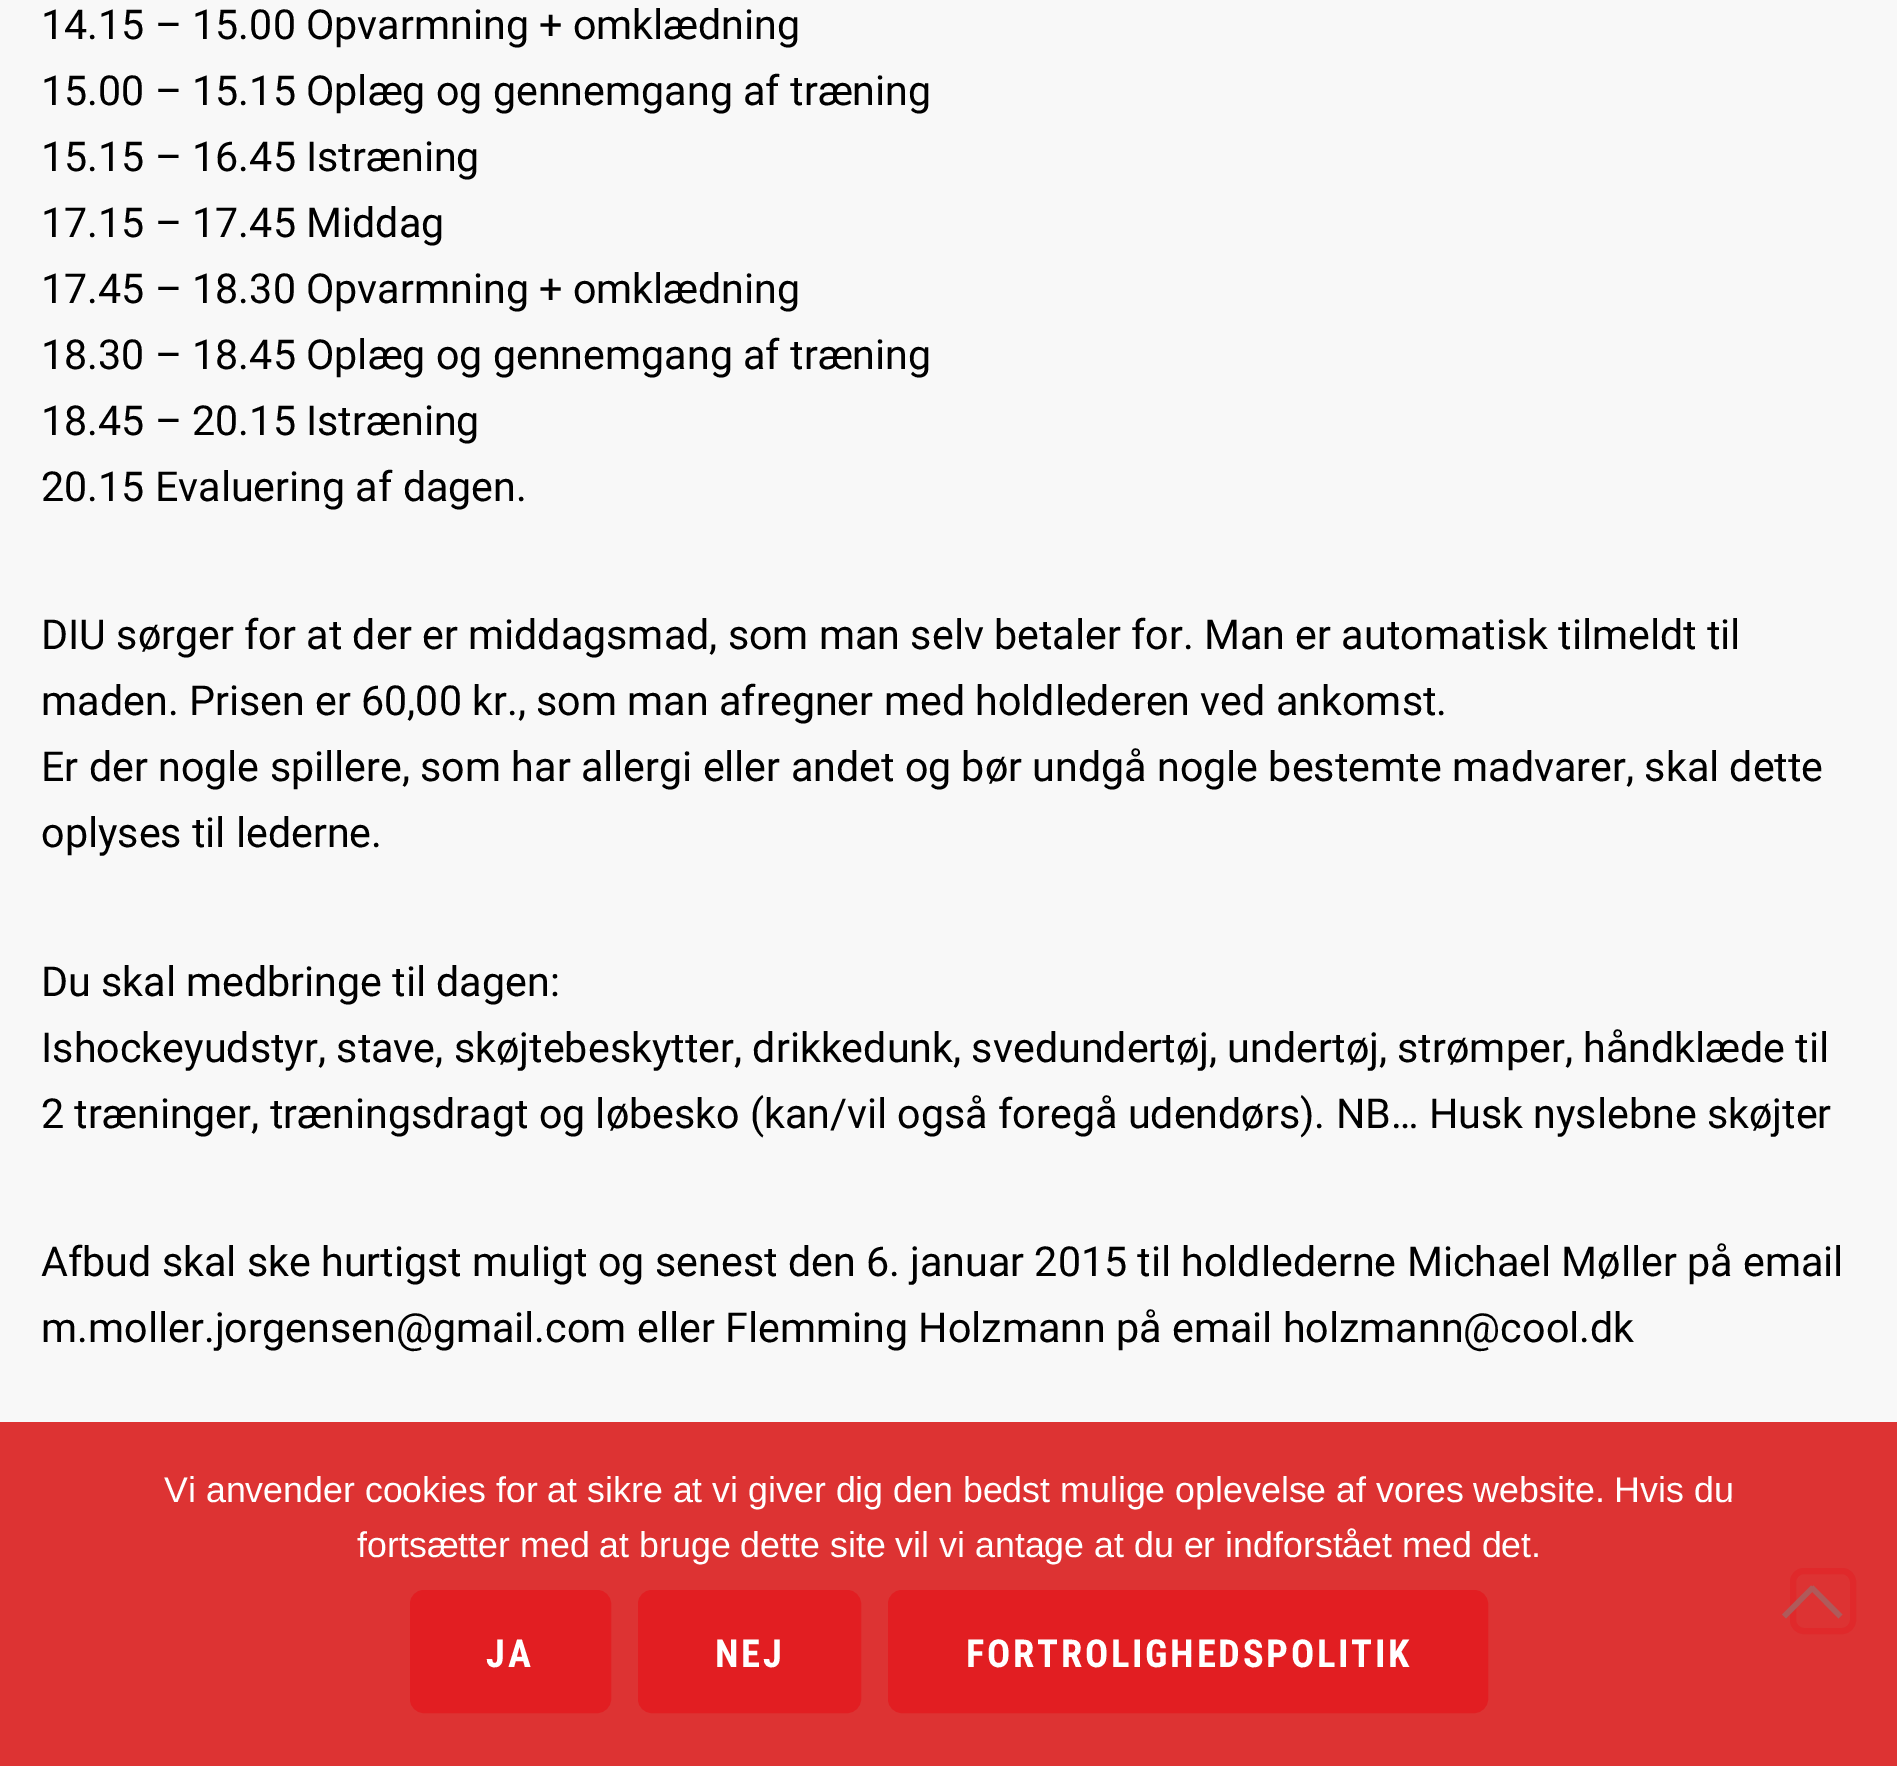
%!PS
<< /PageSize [1897 1766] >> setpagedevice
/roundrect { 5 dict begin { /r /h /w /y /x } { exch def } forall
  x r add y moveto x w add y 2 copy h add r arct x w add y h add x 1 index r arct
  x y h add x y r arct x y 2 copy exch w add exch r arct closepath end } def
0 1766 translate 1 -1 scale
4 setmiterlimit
0.973 setgray
0 0 1897 1766 rectfill
/Roboto-Regular [41.25 0 0 -41.25 0 0] selectfont
0 setgray
41 39 moveto (14.15 – 15.00 Opvarmning + omklædning) show
41 105 moveto (15.00 – 15.15 Oplæg og gennemgang af træning) show
41 171 moveto (15.15 – 16.45 Istræning) show
41 237 moveto (17.15 – 17.45 Middag) show
41 303 moveto (17.45 – 18.30 Opvarmning + omklædning) show
41 369 moveto (18.30 – 18.45 Oplæg og gennemgang af træning) show
41 435 moveto (18.45 – 20.15 Istræning) show
41 501 moveto (20.15 Evaluering af dagen.) show
41 649 moveto (DIU sørger for at der er middagsmad, som man selv betaler for. Man er automatisk tilmeldt til) show
41 715 moveto (maden. Prisen er 60,00 kr., som man afregner med holdlederen ved ankomst.) show
41 781 moveto (Er der nogle spillere, som har allergi eller andet og bør undgå nogle bestemte madvarer, skal dette) show
41 847 moveto (oplyses til lederne.) show
41 996 moveto (Du skal medbringe til dagen:) show
41 1062 moveto (Ishockeyudstyr, stave, skøjtebeskytter, drikkedunk, svedundertøj, undertøj, strømper, håndklæde til) show
41 1128 moveto (2 træninger, træningsdragt og løbesko \(kan/vil også foregå udendørs\). NB… Husk nyslebne skøjter) show
41 1276 moveto (Afbud skal ske hurtigst muligt og senest den 6. januar 2015 til holdlederne Michael Møller på email) show
41 1342 moveto (m.moller.jorgensen@gmail.com eller Flemming Holzmann på email holzmann@cool.dk) show
0.867 0.2 0.2 setrgbcolor
0 1422 1897 344 rectfill
/LiberationSans-Regular [35.75 0 0 -35.75 0 0] selectfont
1 setgray
164 1502 moveto (Vi anvender cookies for at sikre at vi giver dig den bedst mulige oplevelse af vores website. Hvis du) show
357 1557 moveto (fortsætter med at bruge dette site vil vi antage at du er indforstået med det.) show
0.878 0.161 0.169 setrgbcolor
6 setlinewidth
1793 1571 60 60 11 roundrect stroke
0.686 0.353 0.353 setrgbcolor
newpath 1811 1585.5 moveto 1815 1589 lineto 1786 1618.5 lineto 1782 1614.5 lineto closepath fill
newpath 1809.5 1589 moveto 1813.5 1585.5 lineto 1842.5 1614.5 lineto 1838.5 1618.5 lineto closepath fill
0.886 0.118 0.133 setrgbcolor
413 1593 195 117 11 roundrect stroke
416 1596 189 111 rectfill
/RobotoCondensed-Bold [38.5 0 0 -38.5 0 0] selectfont
1 setgray
486 1667 moveto 2.75 0 (JA) ashow
0.886 0.118 0.133 setrgbcolor
641 1593 217 117 11 roundrect stroke
644 1596 211 111 rectfill
1 setgray
715 1667 moveto 2.75 0 (NEJ) ashow
0.886 0.118 0.133 setrgbcolor
891 1593 594 117 11 roundrect stroke
894 1596 588 111 rectfill
1 setgray
966 1667 moveto 2.75 0 (FORTROLIGHEDSPOLITIK) ashow
showpage
